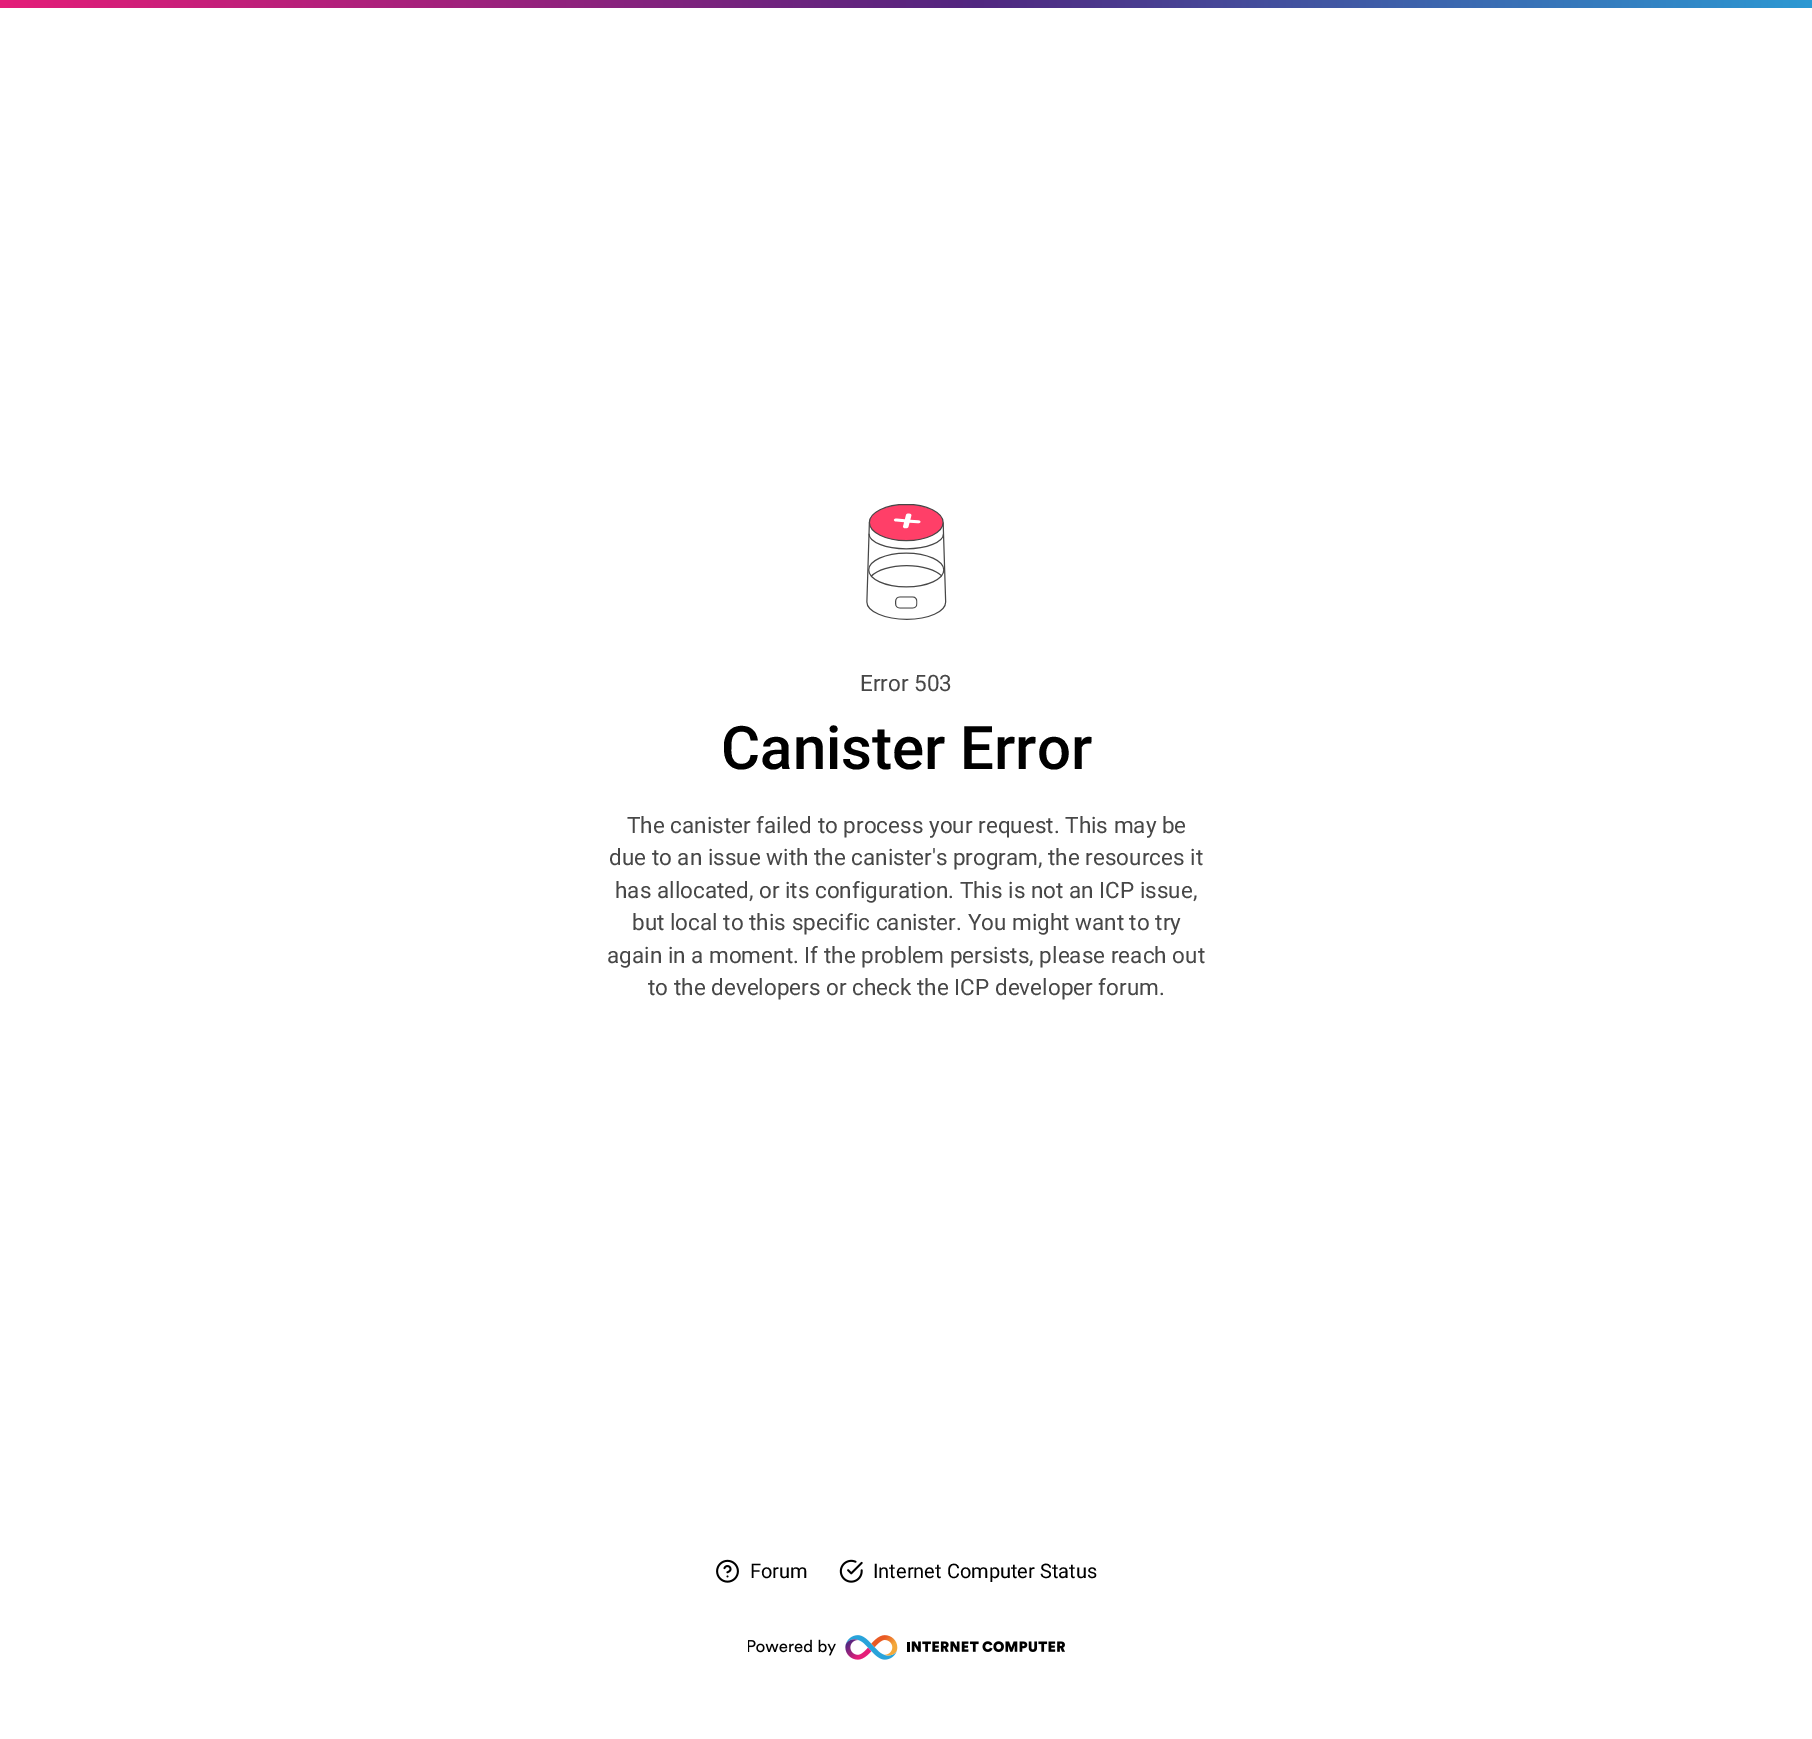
%!PS
<< /PageSize [1812 1739] >> setpagedevice
/picture { 5 dict begin { /h /w /y /x /name } { exch def } forall
  gsave x y translate w h scale
  w h 8 [w 0 0 h 0 0] name (r) file false 3 colorimage grestore end } def
0 1739 translate 1 -1 scale
4 setmiterlimit
1 setgray
0 0 1812 1739 rectfill
gsave newpath 0 0 moveto 1812 0 lineto 1812 8 lineto 0 8 lineto closepath clip newpath
<< /ShadingType 2 /ColorSpace /DeviceRGB /Coords [0 3.8 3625 3.7] /Extend [true true] /Function << /FunctionType 3 /Domain [0 1] /Functions [<< /FunctionType 2 /Domain [0 1] /C0 [0.898 0.118 0.475] /C1 [0.318 0.153 0.502] /N 1 >> << /FunctionType 2 /Domain [0 1] /C0 [0.318 0.153 0.502] /C1 [0.161 0.639 0.855] /N 1 >> << /FunctionType 2 /Domain [0 1] /C0 [0.161 0.639 0.855] /C1 [0.914 0.353 0.141] /N 1 >> << /FunctionType 2 /Domain [0 1] /C0 [0.914 0.353 0.141] /C1 [0.953 0.659 0.231] /N 1 >> << /FunctionType 2 /Domain [0 1] /C0 [0.953 0.659 0.231] /C1 [0.953 0.659 0.231] /N 1 >>] /Bounds [0.27 0.52 0.7 0.98] /Encode [0 1 0 1 0 1 0 1 0 1] >> >> shfill grestore
(img1.rgb) 866 504 81 116 picture
/Roboto-Regular [22.5 0 0 -22.5 0 0] selectfont
0.278 setgray
860 691 moveto (Error 503) show
/Roboto-Medium [60 0 0 -60 0 0] selectfont
0 setgray
721 769 moveto (Canister Error) show
/Roboto-Regular [22.5 0 0 -22.5 0 0] selectfont
0.278 setgray
627 833 moveto (The canister failed to process your request. This may be) show
609 865 moveto (due to an issue with the canister's program, the resources it) show
615 898 moveto (has allocated, or its configuration. This is not an ICP issue,) show
632 930 moveto (but local to this specific canister. You might want to try) show
607 963 moveto (again in a moment. If the problem persists, please reach out) show
648 995 moveto (to the developers or check the ICP developer forum.) show
(img2.rgb) 716 1559 23 24 picture
/Roboto-Regular [20 0 0 -20 0 0] selectfont
0 setgray
750 1578 moveto (Forum) show
(img3.rgb) 839 1559 24 24 picture
873 1578 moveto (Internet Computer Status) show
(img4.rgb) 748 1635 317 25 picture
showpage
